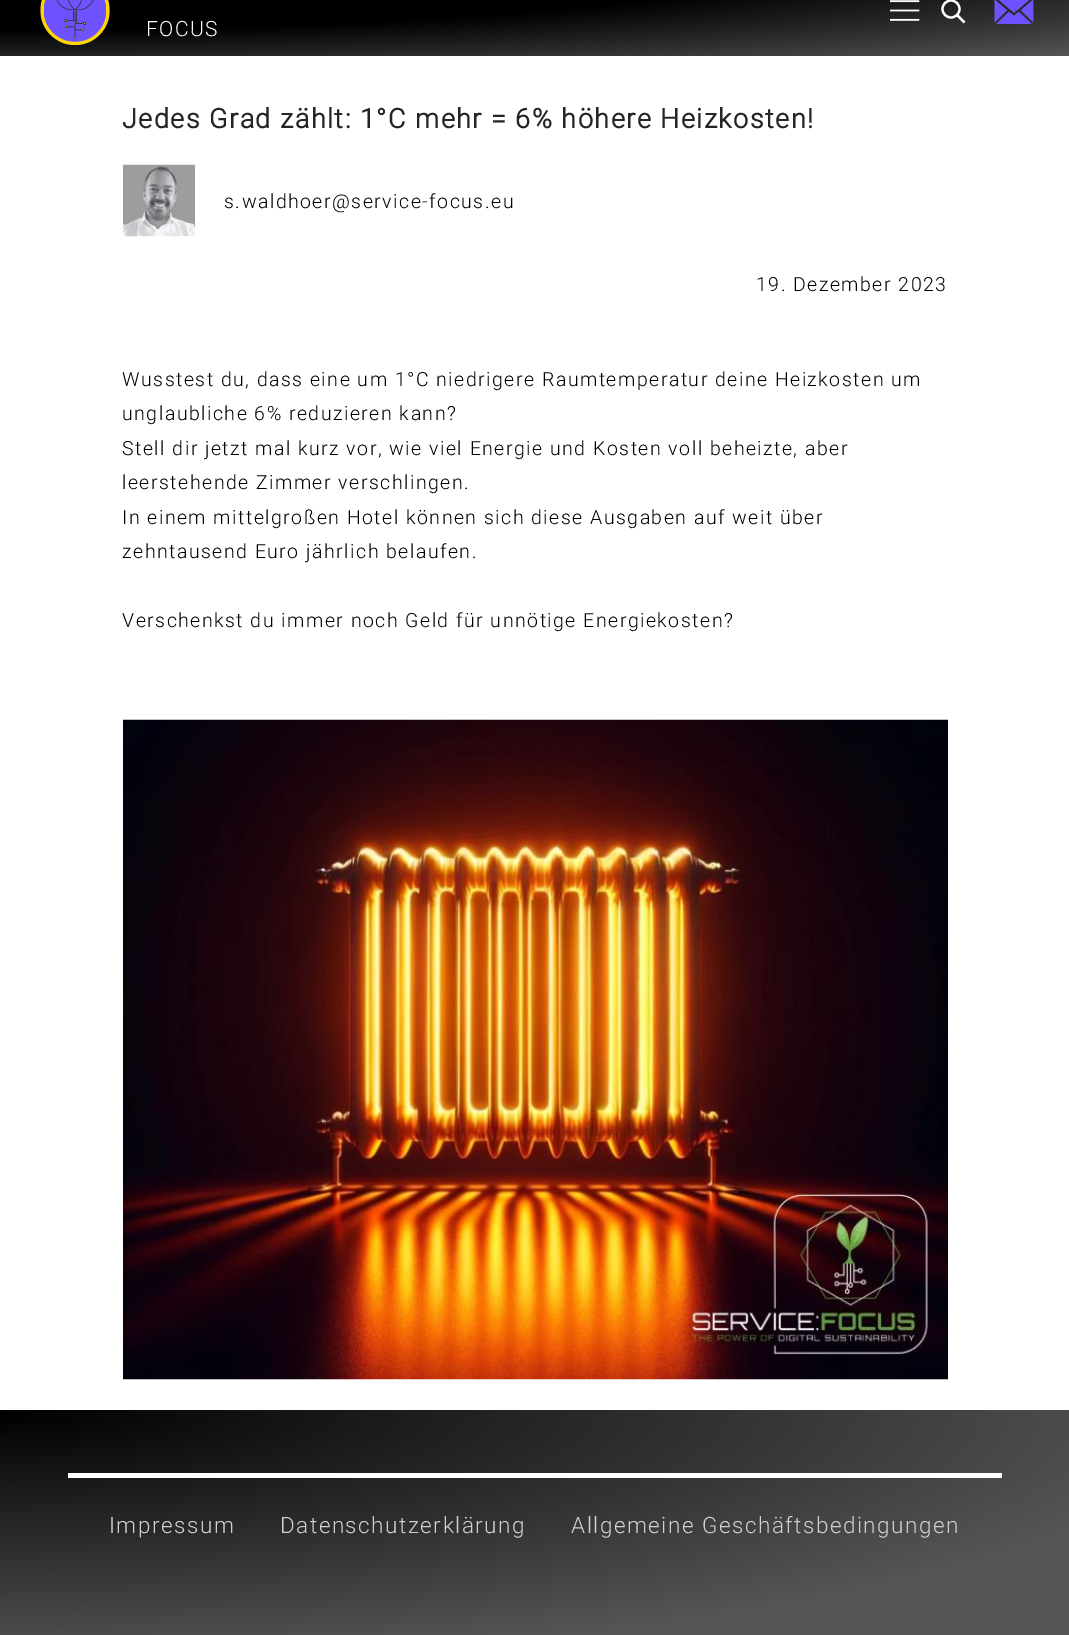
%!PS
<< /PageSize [1069 1635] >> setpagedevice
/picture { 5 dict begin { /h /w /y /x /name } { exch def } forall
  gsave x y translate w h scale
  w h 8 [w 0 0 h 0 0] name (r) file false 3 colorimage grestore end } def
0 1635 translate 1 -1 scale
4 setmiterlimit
1 setgray
0 0 1069 1635 rectfill
gsave newpath 0 0 moveto 1069 0 lineto 1069 56 lineto 0 56 lineto closepath clip newpath 0 -34 translate 1513 127 scale
<< /ShadingType 3 /ColorSpace /DeviceRGB /Coords [0 0 0 0 0 1] /Extend [true true] /Function << /FunctionType 3 /Domain [0 1] /Functions [<< /FunctionType 2 /Domain [0 1] /C0 [0 0 0] /C1 [0 0 0] /N 1 >> << /FunctionType 2 /Domain [0 1] /C0 [0 0 0] /C1 [0.333 0.333 0.333] /N 1 >>] /Bounds [0.5] /Encode [0 1 0 1] >> >> shfill grestore
(img1.rgb) 890 0 30 21 picture
2.2 setlinewidth
newpath 951 9 8.5 0 360 arc closepath stroke
newpath 957 15 moveto 964.5 22.5 lineto stroke
(img2.rgb) 994 0 40 24 picture
(img3.rgb) 40 0 70 45 picture
/Roboto-Light [21 0 0 -21 0 0] selectfont
146 36 moveto 1.5 0 (FOCUS) ashow
/Roboto-Bold [27 0 0 -27 0 0] selectfont
0.145 setgray
122 128 moveto 1.5 0 (Jedes Grad zählt: 1°C mehr = 6% höhere Heizkosten!) ashow
(img4.rgb) 123 164 72 73 picture
/Roboto-Light [19.5 0 0 -19.5 0 0] selectfont
0 setgray
224 208 moveto 1.5 0 (s.waldhoer@service-focus.eu) ashow
756 291 moveto 1.5 0 (19. Dezember 2023) ashow
122 386 moveto 1.5 0 (Wusstest du, dass eine um 1°C niedrigere Raumtemperatur deine Heizkosten um) ashow
122 420 moveto 1.5 0 (unglaubliche 6% reduzieren kann?) ashow
122 455 moveto 1.5 0 (Stell dir jetzt mal kurz vor, wie viel Energie und Kosten voll beheizte, aber) ashow
122 489 moveto 1.5 0 (leerstehende Zimmer verschlingen.) ashow
122 524 moveto 1.5 0 (In einem mittelgroßen Hotel können sich diese Ausgaben auf weit über) ashow
122 558 moveto 1.5 0 (zehntausend Euro jährlich belaufen.) ashow
122 627 moveto 1.5 0 (Verschenkst du immer noch Geld für unnötige Energiekosten?) ashow
(img5.rgb) 123 719 825 661 picture
gsave newpath 0 1410 moveto 1069 1410 lineto 1069 1635 lineto 0 1635 lineto closepath clip newpath 0 1410 translate 1513 318 scale
<< /ShadingType 3 /ColorSpace /DeviceRGB /Coords [0 0 0 0 0 1] /Extend [true true] /Function << /FunctionType 3 /Domain [0 1] /Functions [<< /FunctionType 2 /Domain [0 1] /C0 [0 0 0] /C1 [0.333 0.333 0.333] /N 1 >> << /FunctionType 2 /Domain [0 1] /C0 [0.333 0.333 0.333] /C1 [0.333 0.333 0.333] /N 1 >>] /Bounds [0.8] /Encode [0 1 0 1] >> >> shfill grestore
1 setgray
68 1473 934 5 rectfill
/Roboto-Light [22.5 0 0 -22.5 0 0] selectfont
0.82 setgray
109 1533 moveto 1.5 0 (Impressum) ashow
280 1533 moveto 1.5 0 (Datenschutzerklärung) ashow
571 1533 moveto 1.5 0 (Allgemeine Geschäftsbedingungen) ashow
showpage
